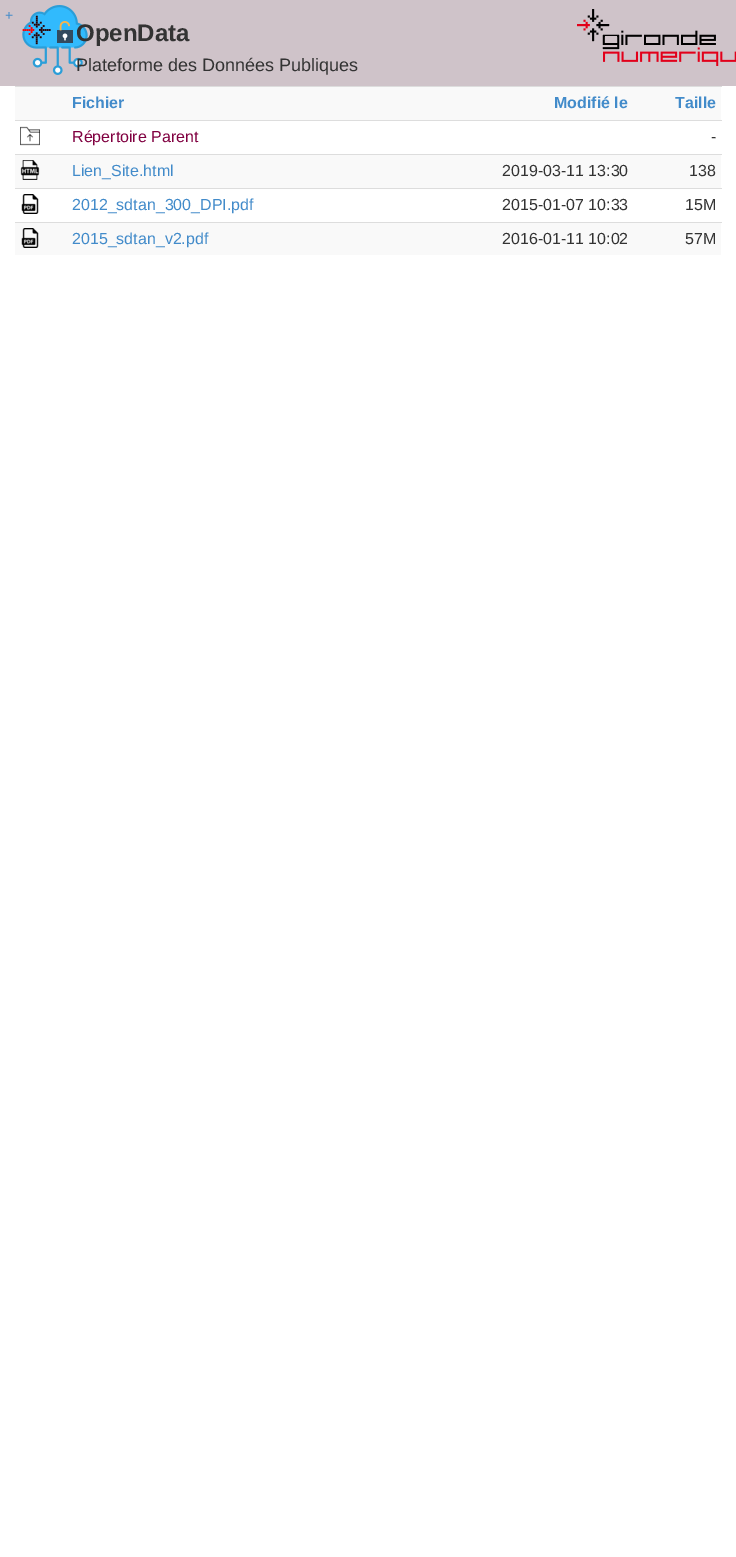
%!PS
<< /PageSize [736 1557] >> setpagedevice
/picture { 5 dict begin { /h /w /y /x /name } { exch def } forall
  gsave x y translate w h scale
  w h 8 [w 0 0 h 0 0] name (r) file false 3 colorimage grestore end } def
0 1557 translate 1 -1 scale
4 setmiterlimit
1 setgray
0 0 736 1557 rectfill
0.812 0.765 0.788 setrgbcolor
0 0 736 86 rectfill
/LiberationSans-Regular [14 0 0 -14 0 0] selectfont
0.259 0.545 0.792 setrgbcolor
5 20 moveto (+) show
(img1.rgb) 22 5 66 70 picture
(img2.rgb) 577 9 159 57 picture
/LiberationSans-Bold [24 0 0 -24 0 0] selectfont
0.2 setgray
76 41 moveto (OpenData) show
/LiberationSans-Regular [18 0 0 -18 0 0] selectfont
76 71 moveto (Plateforme des Données Publiques) show
0.976 setgray
15 87 706 33 rectfill
/LiberationSans-Bold [16 0 0 -16 0 0] selectfont
0.259 0.545 0.792 setrgbcolor
72 108 moveto (Fichier) show
554 108 moveto (Modifié le) show
0.867 setgray
15 86 707 1 rectfill
0.259 0.545 0.792 setrgbcolor
675 108 moveto (Taille) show
(img3.rgb) 20 126 20 20 picture
/LiberationSans-Regular [16 0 0 -16 0 0] selectfont
0.502 0 0.251 setrgbcolor
72 142 moveto (Répertoire Parent) show
0.867 setgray
15 120 707 1 rectfill
0.2 setgray
711 142 moveto (-) show
0.976 setgray
15 155 706 33 rectfill
(img4.rgb) 20 160 20 20 picture
0.259 0.545 0.792 setrgbcolor
72 176 moveto (Lien_Site.html) show
0.2 setgray
502 176 moveto (2019-03-11 13:30) show
0.867 setgray
15 154 707 1 rectfill
0.2 setgray
689 176 moveto (138) show
(img5.rgb) 21 194 18 20 picture
0.259 0.545 0.792 setrgbcolor
72 210 moveto (2012_sdtan_300_DPI.pdf) show
0.2 setgray
502 210 moveto (2015-01-07 10:33) show
0.867 setgray
15 188 707 1 rectfill
0.2 setgray
685 210 moveto (15M) show
0.976 setgray
15 223 706 32 rectfill
(img6.rgb) 21 228 18 20 picture
0.259 0.545 0.792 setrgbcolor
72 244 moveto (2015_sdtan_v2.pdf) show
0.2 setgray
502 244 moveto (2016-01-11 10:02) show
0.867 setgray
15 222 707 1 rectfill
0.2 setgray
685 244 moveto (57M) show
showpage
